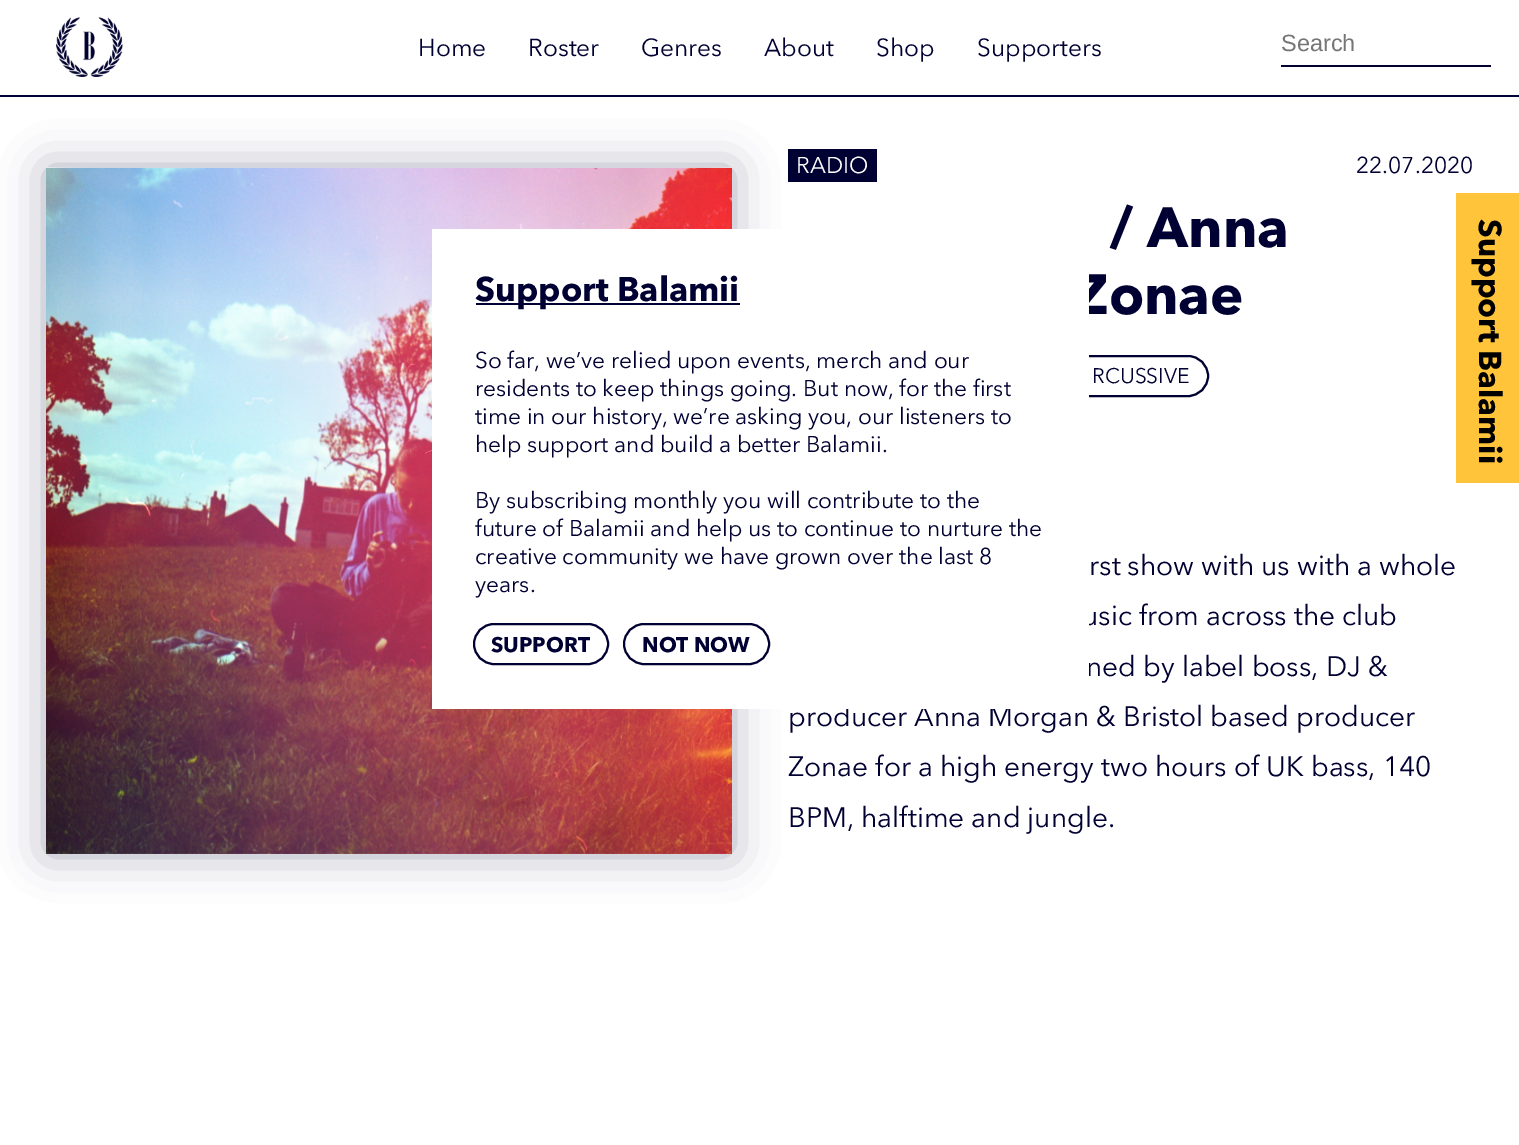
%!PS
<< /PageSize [1519 1145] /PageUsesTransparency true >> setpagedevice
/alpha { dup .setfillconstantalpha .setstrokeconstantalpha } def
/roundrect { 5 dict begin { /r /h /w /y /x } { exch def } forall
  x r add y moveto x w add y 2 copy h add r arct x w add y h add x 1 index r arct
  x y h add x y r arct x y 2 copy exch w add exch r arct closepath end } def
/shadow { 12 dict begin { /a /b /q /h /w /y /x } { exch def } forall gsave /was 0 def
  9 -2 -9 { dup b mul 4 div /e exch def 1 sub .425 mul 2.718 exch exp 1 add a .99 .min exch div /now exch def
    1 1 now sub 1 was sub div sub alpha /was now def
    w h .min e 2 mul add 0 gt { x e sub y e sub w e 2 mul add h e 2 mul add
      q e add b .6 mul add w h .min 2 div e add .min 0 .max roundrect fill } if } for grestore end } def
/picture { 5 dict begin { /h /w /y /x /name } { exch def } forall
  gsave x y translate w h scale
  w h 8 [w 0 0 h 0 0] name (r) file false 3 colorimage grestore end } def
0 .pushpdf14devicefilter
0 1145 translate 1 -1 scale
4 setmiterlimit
1 setgray
0 0 1519 1145 rectfill
0 0 0.196 setrgbcolor
0 95 1519 2 rectfill
(img1.rgb) 56 17 67 60 picture
/AvenirNext-Regular [24.5 0 0 -24.5 0 0] selectfont
418 56 moveto (Home) show
528 56 moveto (Roster) show
641 56 moveto (Genres) show
764 56 moveto (About) show
876 56 moveto (Shop) show
977 56 moveto (Supporters) show
1281 65 210 2 rectfill
/LiberationSans-Regular [23.5 0 0 -23.5 0 0] selectfont
0.459 setgray
1281 51 moveto (Search) show
0 0 0.196 setrgbcolor
788 149 89 33 rectfill
0 0.008 0.192 setrgbcolor
46 168 686 686 0 22 0.33 shadow
(img2.rgb) 46 167 686 687 picture
/AvenirNext-Bold [56 0 0 -56 0 0] selectfont
0 0 0.196 setrgbcolor
1073 314 moveto (Zonae) show
2 setlinewidth
1049 356 159 40 20 roundrect stroke
/AvenirNext-Regular [28 0 0 -28 0 0] selectfont
1082 625 moveto (usic from across the club) show
1086 676 moveto (ned by label boss, DJ &) show
788 726 moveto (producer Anna Morgan & Bristol based producer) show
1 setgray
432 229 657 480 rectfill
0 0 0.196 setrgbcolor
476 303 264 2 rectfill
/AvenirNext-Bold [34 0 0 -34 0 0] selectfont
475 301 moveto (Support Balamii) show
/AvenirNext-Regular [22.75 0 0 -22.75 0 0] selectfont
475 368 moveto (So far, we’ve relied upon events, merch and our) show
475 396 moveto (residents to keep things going. But now, for the first) show
475 424 moveto (time in our history, we’re asking you, our listeners to) show
475 452 moveto (help support and build a better Balamii.) show
475 508 moveto (By subscribing monthly you will contribute to the) show
475 536 moveto (future of Balamii and help us to continue to nurture the) show
475 564 moveto (creative community we have grown over the last 8) show
475 592 moveto (years.) show
474 624 134 40 20 roundrect stroke
/AvenirNext-Bold [21 0 0 -21 0 0] selectfont
491 652 moveto (SUPPORT) show
624 624 145 40 20 roundrect stroke
642 652 moveto (NOT NOW) show
/AvenirNext-Regular [22.75 0 0 -22.75 0 0] selectfont
1 setgray
796 173 moveto (RADIO) show
0 0 0.196 setrgbcolor
1356 173 moveto (22.07.2020) show
/AvenirNext-Bold [56 0 0 -56 0 0] selectfont
1110 247 moveto (/ Anna) show
/AvenirNext-Regular [21 0 0 -21 0 0] selectfont
1092 383 moveto (RCUSSIVE) show
/AvenirNext-Regular [28 0 0 -28 0 0] selectfont
1089 575 moveto (rst show with us with a whole) show
788 776 moveto (Zonae for a high energy two hours of UK bass, 140) show
788 827 moveto (BPM, halftime and jungle.) show
1 0.769 0.224 setrgbcolor
1456 193 63 290 rectfill
/AvenirNext-Bold [31.5 0 0 -31.5 0 0] selectfont
0 setgray
gsave 1479 219 translate 90 rotate 0 0 moveto (Support Balamii) show grestore
.poppdf14devicefilter showpage
